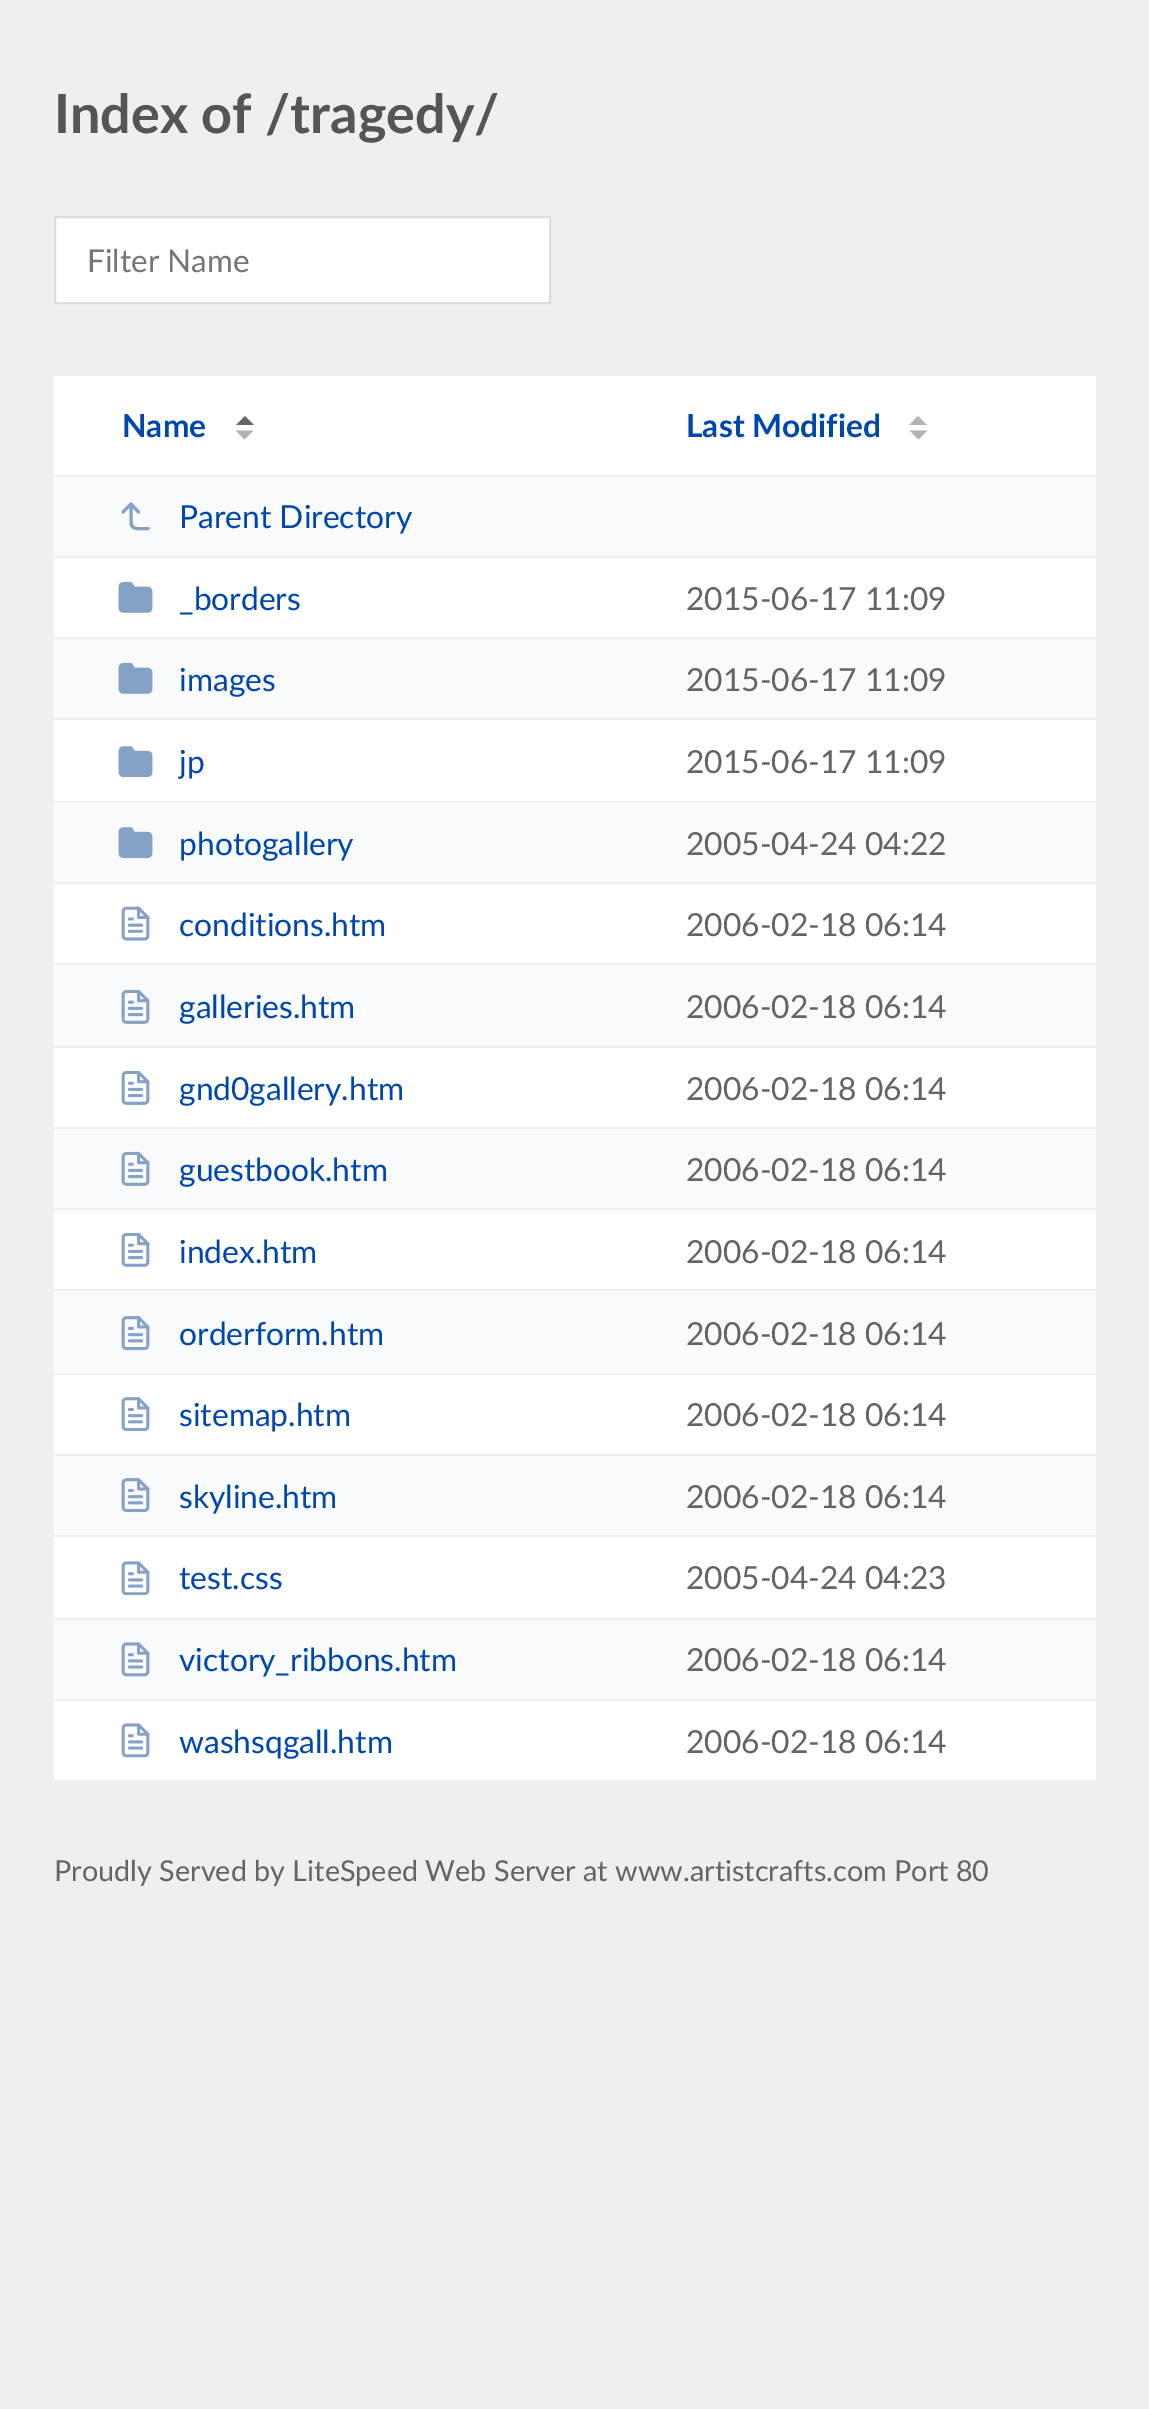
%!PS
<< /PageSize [1149 2409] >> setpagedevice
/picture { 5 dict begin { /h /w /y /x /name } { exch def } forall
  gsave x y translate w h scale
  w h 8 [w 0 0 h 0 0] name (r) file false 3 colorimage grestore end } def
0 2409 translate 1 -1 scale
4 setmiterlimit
0.929 0.937 0.941 setrgbcolor
0 0 1149 2409 rectfill
/Lato-Bold [54 0 0 -54 0 0] selectfont
0.333 setgray
54 133 moveto (Index of /tragedy/) show
1 setgray
newpath 55 217 moveto 550 217 lineto 550 303 lineto 55 303 lineto closepath gsave fill grestore
0.867 setgray
2 setlinewidth
stroke
/Lato-Regular [31.5 0 0 -31.5 0 0] selectfont
0.459 setgray
87 272 moveto (Filter Name) show
1 setgray
54 376 1042 1404 rectfill
/Lato-Bold [31.75 0 0 -31.75 0 0] selectfont
0 0.278 0.671 setrgbcolor
122 437 moveto (Name) show
0.4 setgray
newpath 254 425 moveto 236 425 lineto 245 416 lineto closepath fill
0.702 setgray
newpath 235.5 430.5 moveto 253.5 430.5 lineto 244.5 439.5 lineto closepath fill
0 0.278 0.671 setrgbcolor
686 437 moveto (Last Modified) show
0.702 setgray
newpath 927 425 moveto 909 425 lineto 918 416 lineto closepath 909.5 430.5 moveto 927.5 430.5 lineto 918.5 439.5 lineto closepath fill
0.973 0.98 0.984 setrgbcolor
54 477 1042 79 rectfill
0.929 0.937 0.941 setrgbcolor
54 475 1042 2 rectfill
54 556 1042 2 rectfill
0.525 0.631 0.776 setrgbcolor
3.1 setlinewidth
1 setlinecap
1 setlinejoin
newpath 138.5 512 moveto 131 504 lineto 123 512 lineto 148 528.5 moveto 137 528.5 lineto 133.5 528.5 131 526 131 522.5 curveto 131 504 lineto stroke
/Lato-Regular [31.75 0 0 -31.75 0 0] selectfont
0 0.278 0.671 setrgbcolor
179 528 moveto (Parent Directory) show
(img1.rgb) 118 581 35 32 picture
179 610 moveto (_borders) show
0.392 setgray
686 610 moveto (2015-06-17 11:09) show
0.973 0.98 0.984 setrgbcolor
54 639 1042 79 rectfill
0.929 0.937 0.941 setrgbcolor
54 637 1042 2 rectfill
54 718 1042 2 rectfill
(img2.rgb) 118 662 35 32 picture
0 0.278 0.671 setrgbcolor
179 691 moveto (images) show
0.392 setgray
686 691 moveto (2015-06-17 11:09) show
(img3.rgb) 118 746 35 32 picture
0 0.278 0.671 setrgbcolor
179 773 moveto (jp) show
0.392 setgray
686 773 moveto (2015-06-17 11:09) show
0.973 0.98 0.984 setrgbcolor
54 803 1042 79 rectfill
0.929 0.937 0.941 setrgbcolor
54 801 1042 2 rectfill
54 882 1042 2 rectfill
(img4.rgb) 118 827 35 32 picture
0 0.278 0.671 setrgbcolor
179 855 moveto (photogallery) show
0.392 setgray
686 855 moveto (2005-04-24 04:22) show
(img5.rgb) 121 906 29 35 picture
0 0.278 0.671 setrgbcolor
179 936 moveto (conditions.htm) show
0.392 setgray
686 936 moveto (2006-02-18 06:14) show
0.973 0.98 0.984 setrgbcolor
54 965 1042 81 rectfill
0.929 0.937 0.941 setrgbcolor
54 963 1042 2 rectfill
54 1046 1042 2 rectfill
(img6.rgb) 121 989 29 35 picture
0 0.278 0.671 setrgbcolor
179 1018 moveto (galleries.htm) show
0.392 setgray
686 1018 moveto (2006-02-18 06:14) show
(img7.rgb) 121 1070 29 35 picture
0 0.278 0.671 setrgbcolor
179 1100 moveto (gnd0gallery.htm) show
0.392 setgray
686 1100 moveto (2006-02-18 06:14) show
0.973 0.98 0.984 setrgbcolor
54 1129 1042 82 rectfill
0.929 0.937 0.941 setrgbcolor
54 1127 1042 2 rectfill
54 1208 1042 2 rectfill
(img6.rgb) 121 1151 29 35 picture
0 0.278 0.671 setrgbcolor
179 1181 moveto (guestbook.htm) show
0.392 setgray
686 1181 moveto (2006-02-18 06:14) show
(img7.rgb) 121 1232 29 35 picture
0 0.278 0.671 setrgbcolor
179 1263 moveto (index.htm) show
0.392 setgray
686 1263 moveto (2006-02-18 06:14) show
0.973 0.98 0.984 setrgbcolor
54 1292 1042 81 rectfill
0.929 0.937 0.941 setrgbcolor
54 1289 1042 2 rectfill
54 1373 1042 2 rectfill
(img8.rgb) 121 1316 29 35 picture
0 0.278 0.671 setrgbcolor
179 1345 moveto (orderform.htm) show
0.392 setgray
686 1345 moveto (2006-02-18 06:14) show
(img9.rgb) 121 1397 29 35 picture
0 0.278 0.671 setrgbcolor
179 1426 moveto (sitemap.htm) show
0.392 setgray
686 1426 moveto (2006-02-18 06:14) show
0.973 0.98 0.984 setrgbcolor
54 1456 1042 79 rectfill
0.929 0.937 0.941 setrgbcolor
54 1454 1042 2 rectfill
54 1535 1042 2 rectfill
(img8.rgb) 121 1478 29 35 picture
0 0.278 0.671 setrgbcolor
179 1508 moveto (skyline.htm) show
0.392 setgray
686 1508 moveto (2006-02-18 06:14) show
(img10.rgb) 121 1561 29 34 picture
0 0.278 0.671 setrgbcolor
179 1589 moveto (test.css) show
0.392 setgray
686 1589 moveto (2005-04-24 04:23) show
0.973 0.98 0.984 setrgbcolor
54 1620 1042 79 rectfill
0.929 0.937 0.941 setrgbcolor
54 1618 1042 2 rectfill
54 1699 1042 2 rectfill
(img11.rgb) 121 1642 29 35 picture
0 0.278 0.671 setrgbcolor
179 1671 moveto (victory_ribbons.htm) show
0.392 setgray
686 1671 moveto (2006-02-18 06:14) show
(img12.rgb) 121 1723 29 35 picture
0 0.278 0.671 setrgbcolor
179 1753 moveto (washsqgall.htm) show
0.392 setgray
686 1753 moveto (2006-02-18 06:14) show
/Lato-Regular [28.8 0 0 -28.8 0 0] selectfont
54 1881 moveto (Proudly Served by LiteSpeed Web Server at www.artistcrafts.com Port 80) show
showpage
